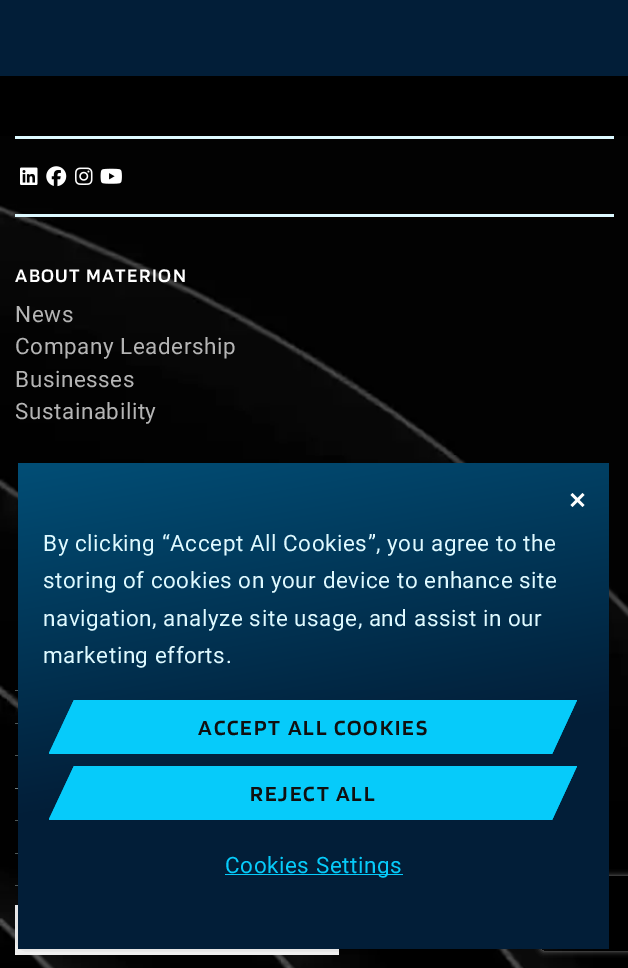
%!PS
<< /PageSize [628 968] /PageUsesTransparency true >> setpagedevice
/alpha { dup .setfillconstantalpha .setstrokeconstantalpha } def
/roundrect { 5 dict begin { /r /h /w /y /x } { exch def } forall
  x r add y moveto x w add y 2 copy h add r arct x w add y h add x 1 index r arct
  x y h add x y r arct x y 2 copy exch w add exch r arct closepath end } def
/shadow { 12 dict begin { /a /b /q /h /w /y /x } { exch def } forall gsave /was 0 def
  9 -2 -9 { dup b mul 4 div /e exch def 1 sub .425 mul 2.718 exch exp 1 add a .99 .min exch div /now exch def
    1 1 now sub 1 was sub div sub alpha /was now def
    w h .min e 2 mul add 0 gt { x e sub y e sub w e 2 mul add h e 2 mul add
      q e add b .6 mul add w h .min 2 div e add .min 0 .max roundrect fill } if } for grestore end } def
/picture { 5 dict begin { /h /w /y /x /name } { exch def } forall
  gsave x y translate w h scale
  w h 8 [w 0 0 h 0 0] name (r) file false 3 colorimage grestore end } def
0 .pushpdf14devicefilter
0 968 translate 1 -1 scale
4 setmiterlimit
0.008 0.118 0.22 setrgbcolor
0 0 628 968 rectfill
0 setgray
0 76 628 60 rectfill
(img1.rgb) 0 136 628 832 picture
0.867 0.976 1 setrgbcolor
15 136 599 3 rectfill
15 214 599 3 rectfill
(img2.rgb) 20 167 18 18 picture
(img3.rgb) 46 166 21 21 picture
(img4.rgb) 75 167 18 18 picture
(img5.rgb) 100 168 22 16 picture
/Blinker-SemiBold [20 0 0 -20 0 0] selectfont
1 setgray
15 282 moveto 1.4 0 (ABOUT MATERION) ashow
/Roboto-Regular [22.5 0 0 -22.5 0 0] selectfont
0.706 setgray
15 322 moveto 0.55 0 (News) ashow
15 354 moveto 0.55 0 (Company Leadership) ashow
15 387 moveto 0.55 0 (Businesses) ashow
15 419 moveto 0.55 0 (Sustainability) ashow
0.349 0.384 0.388 setrgbcolor
15 690 3 1 rectfill
0.7 alpha
0.494 0.549 0.553 setrgbcolor
15 723 3 1 rectfill
15 755 3 1 rectfill
1 alpha
15 788 3 1 rectfill
0.7 alpha
15 820 3 1 rectfill
15 853 3 1 rectfill
15 885 3 1 rectfill
1 alpha
1 setgray
15 905 324 50 rectfill
0 setgray
18 463 591 486 3 11 0.2 shadow
gsave
newpath 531 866 moveto 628 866 lineto 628 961 lineto 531 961 lineto closepath 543.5 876 moveto 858.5 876 lineto 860 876 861 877 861 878.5 curveto 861 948.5 lineto 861 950 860 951 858.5 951 curveto 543.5 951 lineto 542 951 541 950 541 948.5 curveto 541 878.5 lineto 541 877 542 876 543.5 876 curveto closepath eoclip newpath
0.502 setgray
541 876 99 75 2.5 3 1 shadow
grestore
gsave 18 463 591 486 3 roundrect clip newpath
<< /ShadingType 2 /ColorSpace /DeviceRGB /Coords [263 419 364 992] /Extend [true true] /Function << /FunctionType 3 /Domain [0 1] /Functions [<< /FunctionType 2 /Domain [0 1] /C0 [0.004 0.306 0.463] /C1 [0.008 0.118 0.22] /N 1 >> << /FunctionType 2 /Domain [0 1] /C0 [0.008 0.118 0.22] /C1 [0.008 0.118 0.22] /N 1 >>] /Bounds [0.6] /Encode [0 1 0 1] >> >> shfill grestore
1 setgray
2.7 setlinewidth
newpath 571.5 494 moveto 583.5 506 lineto 583.5 494 moveto 571.5 506 lineto stroke
0.871 0.976 1 setrgbcolor
43 551 moveto 0.55 0 (By clicking “Accept All Cookies”, you agree to the) ashow
43 588 moveto 0.55 0 (storing of cookies on your device to enhance site) ashow
43 626 moveto 0.55 0 (navigation, analyze site usage, and assist in our) ashow
43 663 moveto 0.55 0 (marketing efforts.) ashow
0.024 0.796 0.98 setrgbcolor
newpath 49 753 moveto 74 700 lineto 577 700 lineto 552 754 lineto closepath fill
newpath 49 754 moveto 74 700 lineto 577 700 lineto 552 754 lineto closepath fill
/Blinker-SemiBold [22.5 0 0 -22.5 0 0] selectfont
0.063 setgray
198 735 moveto 1.9 0 (ACCEPT ALL COOKIES) ashow
0.024 0.796 0.98 setrgbcolor
newpath 49 819 moveto 74 766 lineto 577 766 lineto 552 820 lineto closepath fill
newpath 49 820 moveto 74 766 lineto 577 766 lineto 552 820 lineto closepath fill
0.063 setgray
250 801 moveto 1.9 0 (REJECT ALL) ashow
0.024 0.796 0.98 setrgbcolor
225 874 178 1 rectfill
/Roboto-Regular [22.5 0 0 -22.5 0 0] selectfont
225 873 moveto 0.55 0 (Cookies Settings) ashow
.poppdf14devicefilter showpage
